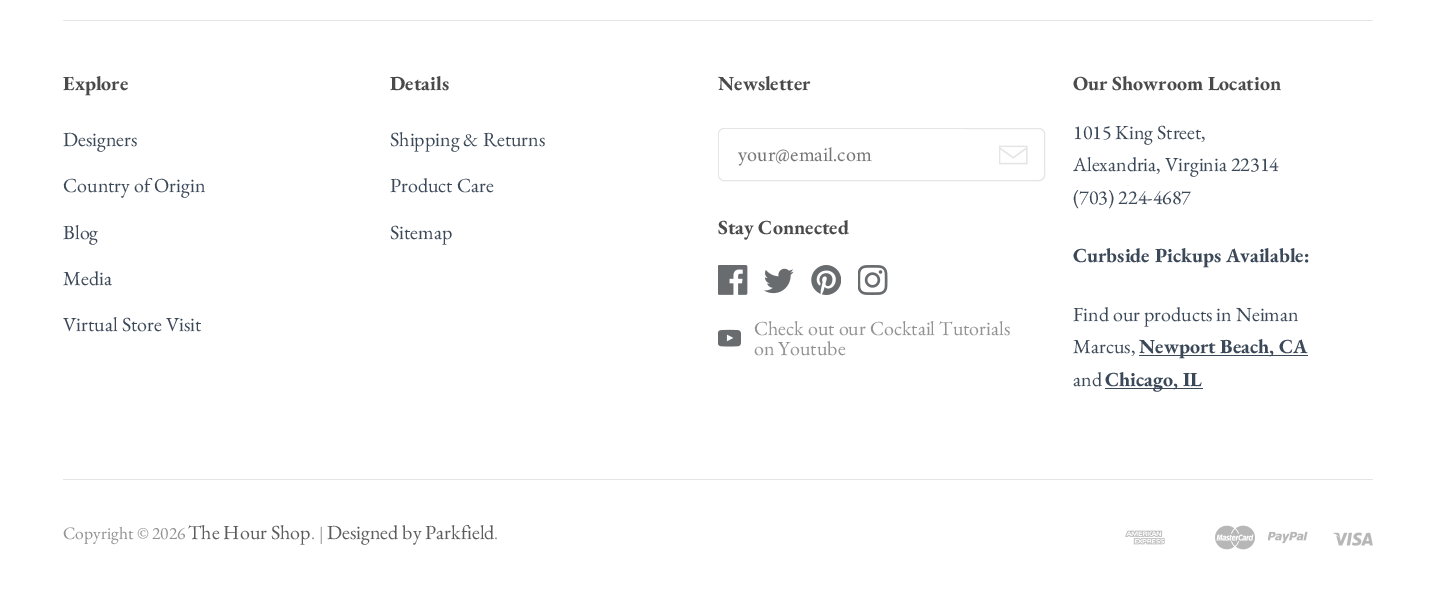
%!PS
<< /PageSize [1434 595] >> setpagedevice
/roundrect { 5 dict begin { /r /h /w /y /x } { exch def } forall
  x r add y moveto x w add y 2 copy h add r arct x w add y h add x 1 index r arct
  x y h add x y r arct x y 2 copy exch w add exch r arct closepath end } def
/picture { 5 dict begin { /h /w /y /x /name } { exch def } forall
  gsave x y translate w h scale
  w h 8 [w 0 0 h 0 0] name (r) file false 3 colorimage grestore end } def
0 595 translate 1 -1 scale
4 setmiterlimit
1 setgray
0 0 1434 595 rectfill
0.898 setgray
63 20 1310 1 rectfill
63 479 1310 1 rectfill
/EBGaramond-Bold [20 0 0 -20 0 0] selectfont
0.29 setgray
63 90 moveto (Explore) show
/EBGaramond-Regular [20 0 0 -20 0 0] selectfont
0.231 0.282 0.345 setrgbcolor
63 146 moveto (Designers) show
63 192 moveto (Country of Origin) show
63 239 moveto (Blog) show
63 285 moveto (Media) show
63 331 moveto (Virtual Store Visit) show
/EBGaramond-Bold [20 0 0 -20 0 0] selectfont
0.29 setgray
390 90 moveto (Details) show
/EBGaramond-Regular [20 0 0 -20 0 0] selectfont
0.231 0.282 0.345 setrgbcolor
390 146 moveto (Shipping & Returns) show
390 192 moveto (Product Care) show
390 239 moveto (Sitemap) show
/EBGaramond-Bold [20 0 0 -20 0 0] selectfont
0.29 setgray
718 90 moveto (Newsletter) show
0.898 setgray
718.5 128.5 326 52 5.5 roundrect stroke
1 setgray
719 129 250 51 6 roundrect fill
/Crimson-Regular [17.5 0 0 -17.5 0 0] selectfont
0.459 setgray
738 161 moveto (your@email.com) show
(img1.rgb) 999 145 29 20 picture
/EBGaramond-Bold [20 0 0 -20 0 0] selectfont
0.29 setgray
718 234 moveto (Stay Connected) show
(img2.rgb) 718 265 30 30 picture
(img3.rgb) 764 268 30 26 picture
(img4.rgb) 811 265 30 30 picture
(img5.rgb) 858 265 30 30 picture
(img6.rgb) 718 329 23 18 picture
/EBGaramond-Regular [20 0 0 -20 0 0] selectfont
0.573 setgray
754 335 moveto (Check out our Cocktail Tutorials) show
754 355 moveto (on Youtube) show
/EBGaramond-Bold [20 0 0 -20 0 0] selectfont
0.29 setgray
1073 90 moveto (Our Showroom Location) show
/EBGaramond-Regular [20 0 0 -20 0 0] selectfont
0.231 0.282 0.345 setrgbcolor
1073 139 moveto (1015 King Street,) show
1073 171 moveto (Alexandria, Virginia 22314) show
1073 204 moveto (\(703\) 224-4687) show
/EBGaramond-Bold [20 0 0 -20 0 0] selectfont
1073 262 moveto (Curbside Pickups Available:) show
/EBGaramond-Regular [20 0 0 -20 0 0] selectfont
1073 321 moveto (Find our products in Neiman) show
1073 353 moveto (Marcus,) show
1139 355 169 1 rectfill
/EBGaramond-Bold [20 0 0 -20 0 0] selectfont
1139 353 moveto (Newport Beach, CA) show
/EBGaramond-Regular [20 0 0 -20 0 0] selectfont
1073 386 moveto (and) show
1105 388 98 1 rectfill
/EBGaramond-Bold [20 0 0 -20 0 0] selectfont
1105 386 moveto (Chicago, IL) show
/EBGaramond-Regular [17.5 0 0 -17.5 0 0] selectfont
0.573 setgray
63 539 moveto (Copyright © 2026) show
/EBGaramond-Regular [20 0 0 -20 0 0] selectfont
0.361 setgray
188 539 moveto (The Hour Shop) show
/EBGaramond-Regular [17.5 0 0 -17.5 0 0] selectfont
0.573 setgray
311 539 moveto (. |) show
/EBGaramond-Regular [20 0 0 -20 0 0] selectfont
0.361 setgray
327 539 moveto (Designed by Parkfield) show
/EBGaramond-Regular [17.5 0 0 -17.5 0 0] selectfont
0.573 setgray
494 539 moveto (.) show
(img7.rgb) 1125 530 40 15 picture
(img8.rgb) 1215 525 40 25 picture
(img9.rgb) 1268 531 40 13 picture
(img10.rgb) 1333 532 40 14 picture
showpage
